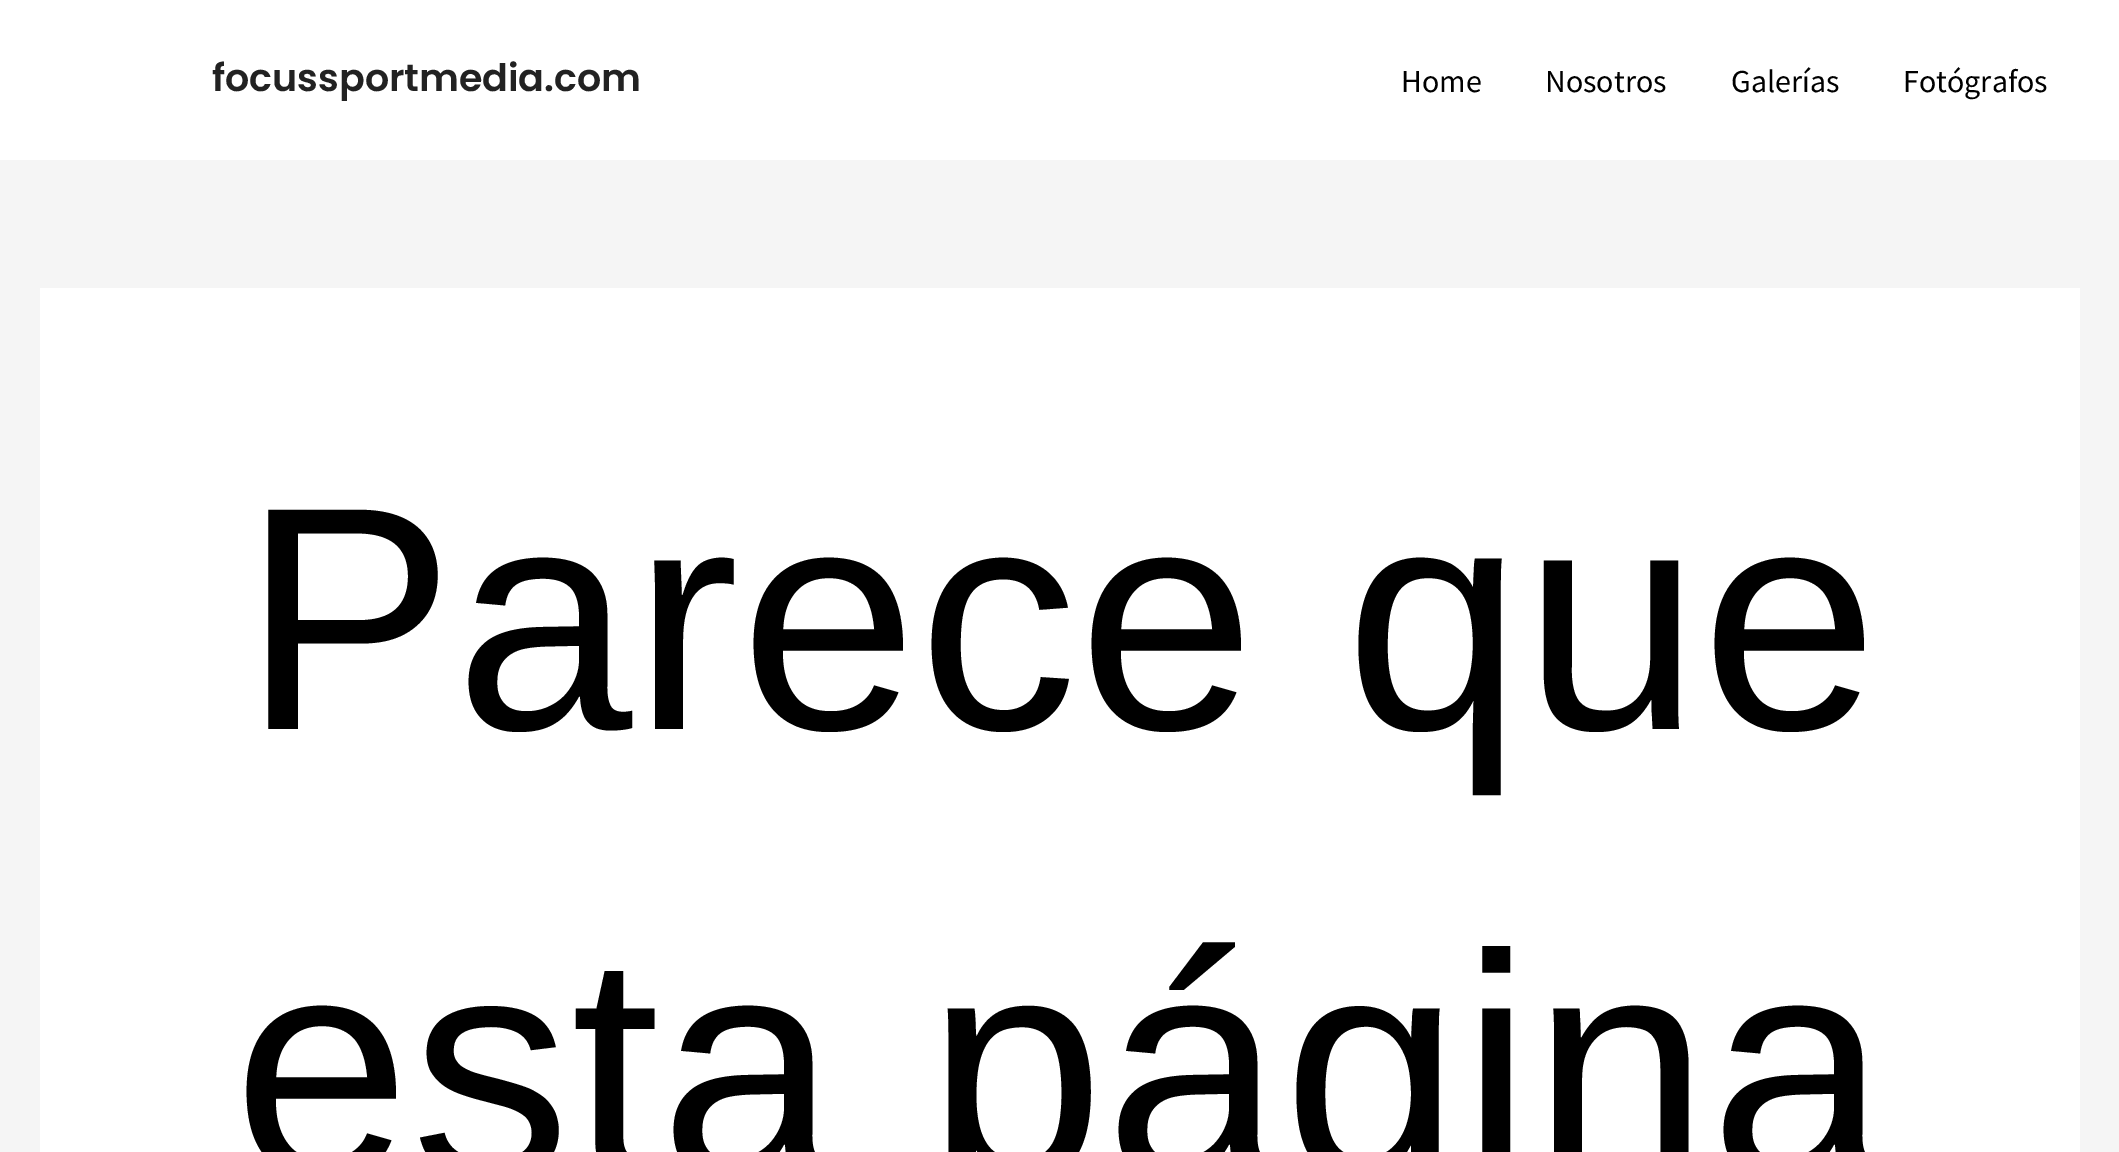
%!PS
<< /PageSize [2119 1152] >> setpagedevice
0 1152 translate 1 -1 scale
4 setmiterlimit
0.961 setgray
0 0 2119 1152 rectfill
1 setgray
0 0 2119 160 rectfill
/Poppins-SemiBold [38 0 0 -38 0 0] selectfont
0.133 setgray
212 91 moveto (focussportmedia.com) show
/SourceSansPro-Regular [32 0 0 -32 0 0] selectfont
0 setgray
1401 92 moveto (Home) show
1545 92 moveto (Nosotros) show
1731 92 moveto (Galerías) show
1903 92 moveto (Fotógrafos) show
1 setgray
40 288 2040 864 rectfill
/LiberationSans-Regular [320 0 0 -320 0 0] selectfont
0 setgray
242 729 moveto (Parece que) show
233 1177 moveto (esta página) show
showpage
